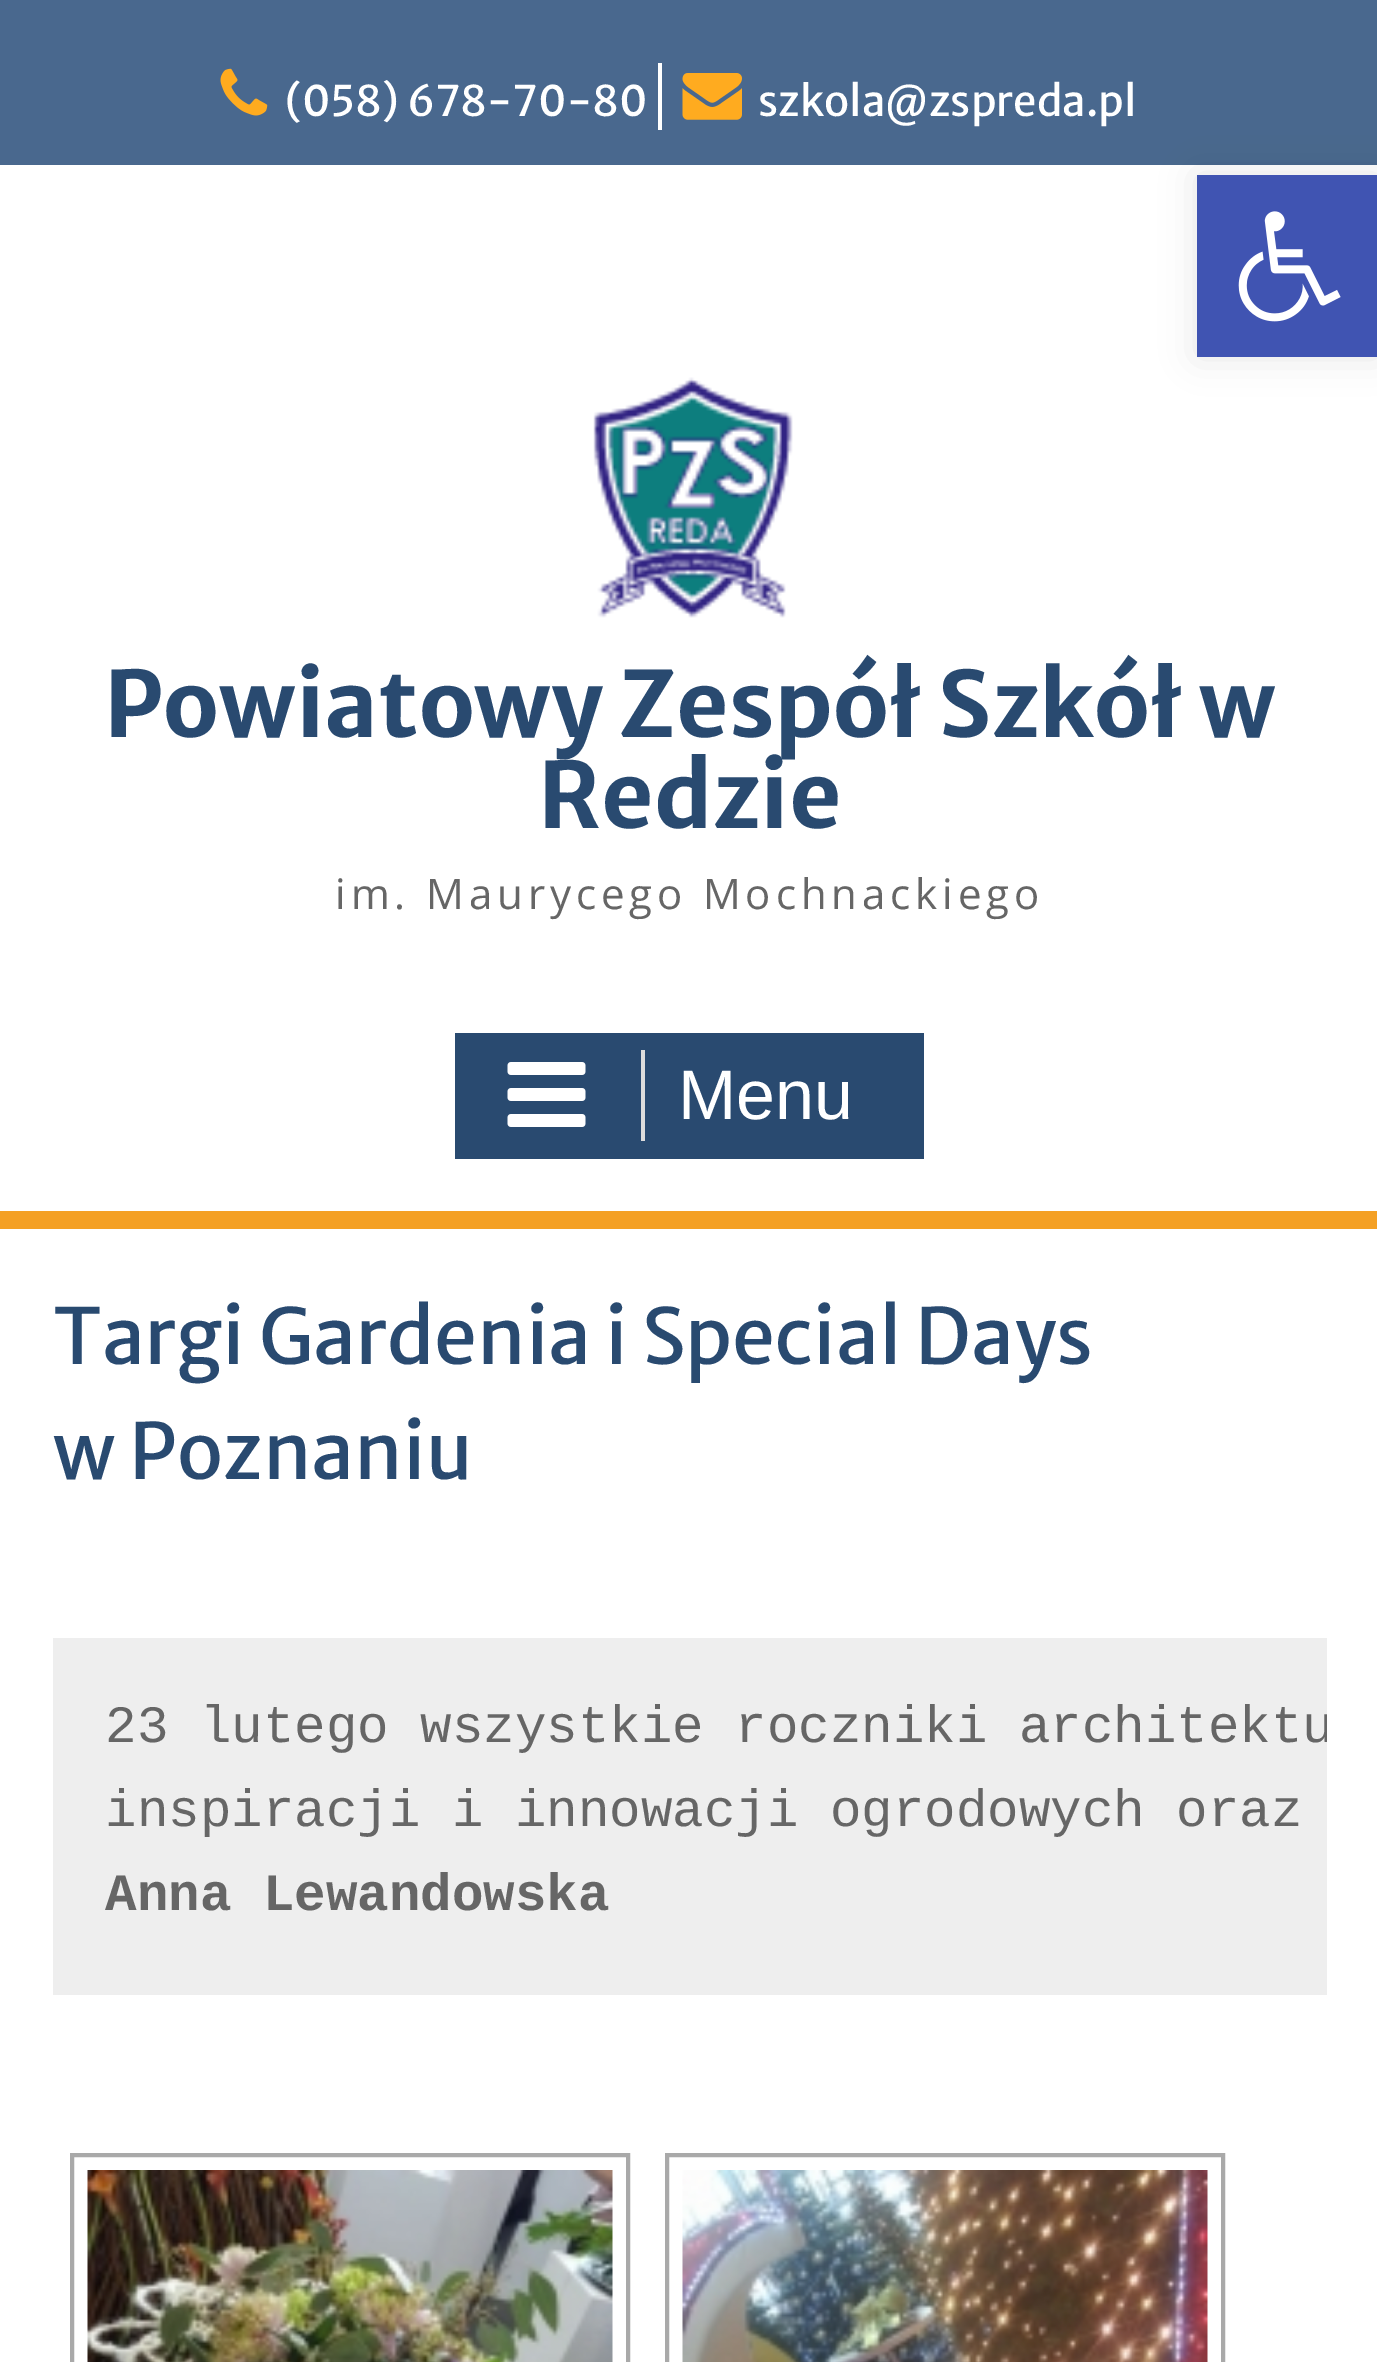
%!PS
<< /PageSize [1377 2362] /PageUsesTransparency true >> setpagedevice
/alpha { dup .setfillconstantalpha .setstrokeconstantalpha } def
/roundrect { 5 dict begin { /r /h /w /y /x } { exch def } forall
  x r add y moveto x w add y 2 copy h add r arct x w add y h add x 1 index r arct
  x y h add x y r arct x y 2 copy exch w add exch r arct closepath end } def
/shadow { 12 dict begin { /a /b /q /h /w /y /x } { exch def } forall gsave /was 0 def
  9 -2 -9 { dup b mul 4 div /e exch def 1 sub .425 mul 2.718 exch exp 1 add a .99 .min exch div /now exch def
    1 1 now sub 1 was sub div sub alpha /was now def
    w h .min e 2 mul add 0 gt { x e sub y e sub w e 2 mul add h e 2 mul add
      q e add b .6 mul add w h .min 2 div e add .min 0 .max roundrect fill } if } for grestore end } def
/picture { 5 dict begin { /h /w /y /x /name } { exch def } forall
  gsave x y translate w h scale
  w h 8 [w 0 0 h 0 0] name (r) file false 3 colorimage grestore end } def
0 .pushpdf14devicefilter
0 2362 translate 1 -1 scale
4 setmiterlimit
1 setgray
0 0 1377 2362 rectfill
0.286 0.408 0.557 setrgbcolor
0 0 1377 165 rectfill
(img1.rgb) 220 68 48 48 picture
/MerriweatherSans-Regular [42 0 0 -42 0 0] selectfont
1 setgray
285 116 moveto (\(058\) 678-70-80) show
658 63 4 67 rectfill
(img2.rgb) 682 73 60 47 picture
758 116 moveto (szkola@zspreda.pl) show
(img3.rgb) 593 377 200 241 picture
/MerriweatherSans-Bold [91 0 0 -91 0 0] selectfont
0.161 0.29 0.439 setrgbcolor
104 737 moveto (Powiatowy Zespół Szkół w) show
538 828 moveto (Redzie) show
/OpenSans-Regular [42 0 0 -42 0 0] selectfont
0.4 setgray
335 909 moveto 4.9 0 (im. Maurycego Mochnackiego) ashow
0.957 0.627 0.141 setrgbcolor
0 1211 1377 18 rectfill
0.161 0.29 0.439 setrgbcolor
455 1033 469 126 rectfill
0.867 setgray
641 1050 4 91 rectfill
(img4.rgb) 507 1062 79 65 picture
/LiberationSans-Regular [70 0 0 -70 0 0] selectfont
1 setgray
678 1119 moveto (Menu) show
/MerriweatherSans-Regular [77 0 0 -77 0 0] selectfont
0.161 0.29 0.439 setrgbcolor
53 1364 moveto (Targi Gardenia i Special Days) show
53 1479 moveto (w Poznaniu) show
0.933 setgray
53 1638 1274 357 rectfill
gsave
53 1638 1274 357 rectclip
/LiberationMono-Regular [52.5 0 0 -52.5 0 0] selectfont
0.4 setgray
105 1742 moveto (23 lutego wszystkie roczniki architektu) show
grestore
/LiberationMono-Regular [52.5 0 0 -52.5 0 0] selectfont
0.4 setgray
105 1826 moveto (inspiracji i innowacji ogrodowych oraz) show
/LiberationMono-Bold [52.5 0 0 -52.5 0 0] selectfont
105 1910 moveto (Anna Lewandowska) show
0.663 setgray
4 setlinewidth
72 2155 556 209 rectstroke
(img5.rgb) 87 2170 526 192 picture
667 2155 556 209 rectstroke
(img6.rgb) 682 2170 526 192 picture
0 setgray
1197 175 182 182 0 17.5 0.1 shadow
0.251 0.329 0.698 setrgbcolor
1197 175 180 182 rectfill
(img7.rgb) 1238 211 103 111 picture
.poppdf14devicefilter showpage
